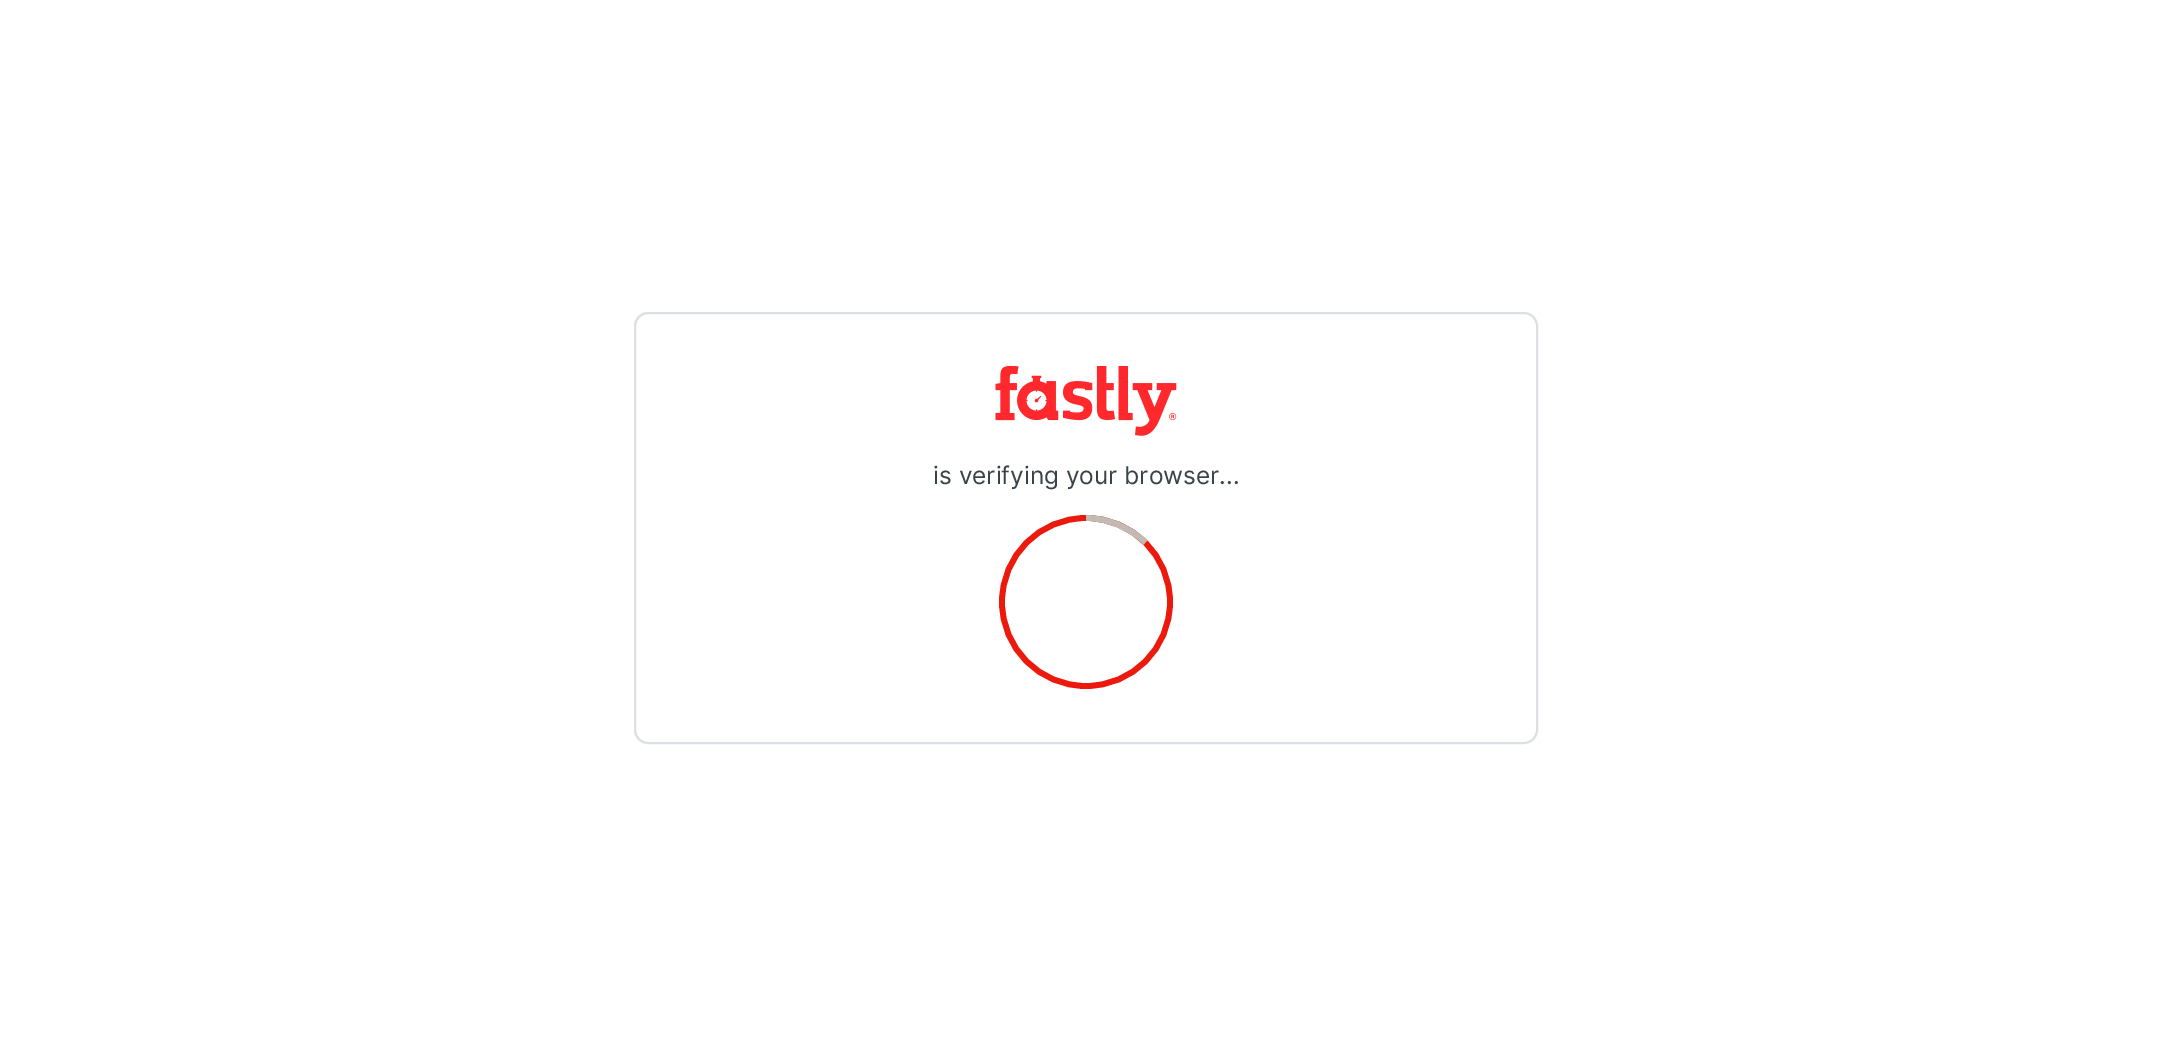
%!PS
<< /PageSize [2171 1052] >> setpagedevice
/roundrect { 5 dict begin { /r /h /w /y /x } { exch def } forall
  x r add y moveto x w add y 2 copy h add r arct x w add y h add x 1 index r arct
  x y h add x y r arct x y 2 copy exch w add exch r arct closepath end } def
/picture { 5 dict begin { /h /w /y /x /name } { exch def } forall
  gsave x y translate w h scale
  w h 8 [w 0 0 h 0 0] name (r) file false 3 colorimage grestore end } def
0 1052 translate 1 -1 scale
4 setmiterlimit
1 setgray
0 0 2171 1052 rectfill
0.863 0.878 0.894 setrgbcolor
2 setlinewidth
635 313 902 430 13 roundrect stroke
(img1.rgb) 995 366 182 70 picture
/Inter-Regular [24.5 0 0 -24.5 0 0] selectfont
0.227 0.259 0.29 setrgbcolor
933 484 moveto (is verifying your browser...) show
0.922 0.102 0.047 setrgbcolor
5.8 setlinewidth
newpath 1002 602 moveto 1002 555.5 1039.5 518 1086 518 curveto 1132.5 518 1170 555.5 1170 602 curveto 1170 648.5 1132.5 686 1086 686 curveto 1039.5 686 1002 648.5 1002 602 curveto closepath stroke
0.761 0.729 0.71 setrgbcolor
newpath 1145.5 542.5 moveto 1129.5 527 1108 518 1086 518 curveto stroke
showpage
